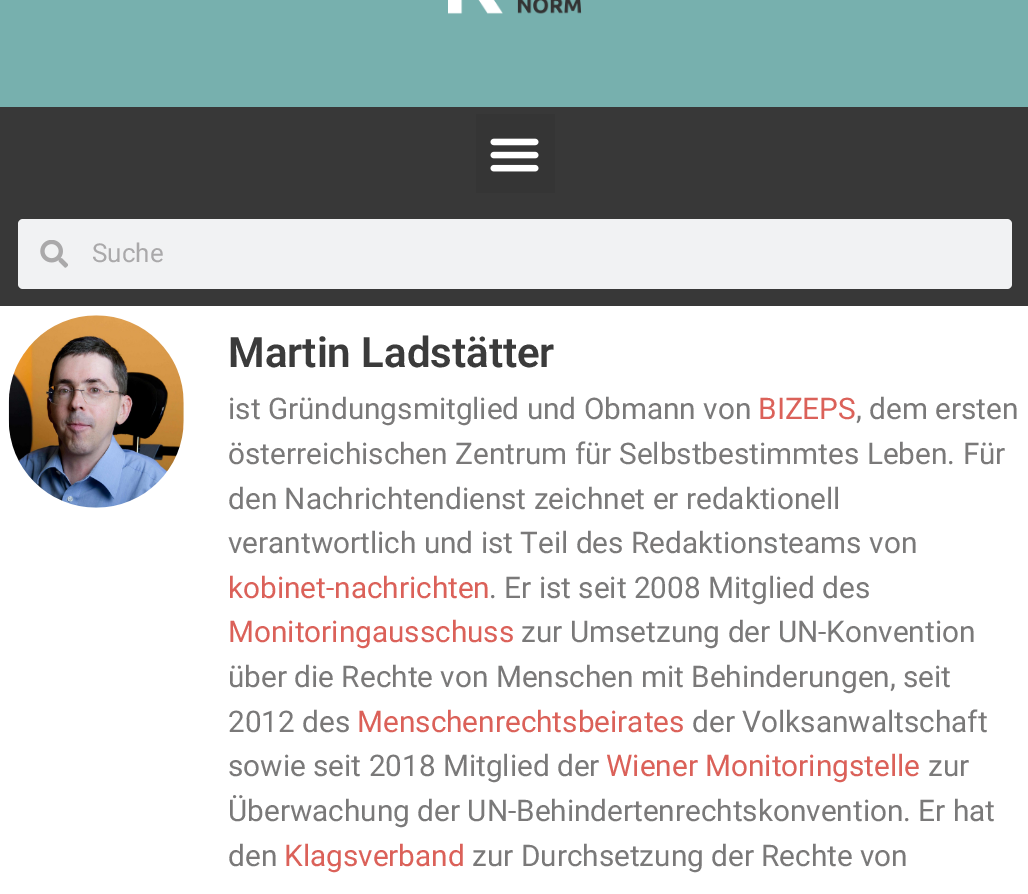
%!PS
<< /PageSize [1028 894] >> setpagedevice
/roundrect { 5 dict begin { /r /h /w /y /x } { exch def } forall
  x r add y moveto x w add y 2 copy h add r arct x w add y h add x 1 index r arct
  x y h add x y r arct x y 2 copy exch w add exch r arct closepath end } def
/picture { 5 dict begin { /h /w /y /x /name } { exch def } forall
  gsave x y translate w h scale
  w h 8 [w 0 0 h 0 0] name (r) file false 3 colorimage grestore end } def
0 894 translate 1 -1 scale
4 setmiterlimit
1 setgray
0 0 1028 894 rectfill
0.467 0.69 0.682 setrgbcolor
0 0 1028 107 rectfill
(img1.rgb) 448 0 134 14 picture
0.22 setgray
0 107 1028 199 rectfill
0.208 setgray
476 114 79 79 rectfill
(img2.rgb) 490 138 49 34 picture
0.945 0.949 0.953 setrgbcolor
18 219 994 70 5 roundrect fill
(img3.rgb) 40 240 28 28 picture
/Roboto-Regular [26 0 0 -26 0 0] selectfont
0.667 0.663 0.667 setrgbcolor
92 262 moveto (Suche) show
(img4.rgb) 8 315 176 193 picture
/Roboto-SemiBold [42 0 0 -42 0 0] selectfont
0.231 setgray
228 367 moveto (Martin Ladstätter) show
/Roboto-Regular [29.75 0 0 -29.75 0 0] selectfont
0.478 0.475 0.475 setrgbcolor
228 419 moveto (ist Gründungsmitglied und Obmann von) show
0.859 0.38 0.349 setrgbcolor
758 419 moveto (BIZEPS) show
0.478 0.475 0.475 setrgbcolor
856 419 moveto (, dem ersten) show
228 464 moveto (österreichischen Zentrum für Selbstbestimmtes Leben. Für) show
228 509 moveto (den Nachrichtendienst zeichnet er redaktionell) show
228 553 moveto (verantwortlich und ist Teil des Redaktionsteams von) show
0.859 0.38 0.349 setrgbcolor
228 598 moveto (kobinet-nachrichten) show
0.478 0.475 0.475 setrgbcolor
489 598 moveto (. Er ist seit 2008 Mitglied des) show
0.859 0.38 0.349 setrgbcolor
228 642 moveto (Monitoringausschuss) show
0.478 0.475 0.475 setrgbcolor
521 642 moveto (zur Umsetzung der UN-Konvention) show
228 687 moveto (über die Rechte von Menschen mit Behinderungen, seit) show
228 732 moveto (2012 des) show
0.859 0.38 0.349 setrgbcolor
357 732 moveto (Menschenrechtsbeirates) show
0.478 0.475 0.475 setrgbcolor
692 732 moveto (der Volksanwaltschaft) show
228 776 moveto (sowie seit 2018 Mitglied der) show
0.859 0.38 0.349 setrgbcolor
606 776 moveto (Wiener Monitoringstelle) show
0.478 0.475 0.475 setrgbcolor
928 776 moveto (zur) show
228 821 moveto (Überwachung der UN-Behindertenrechtskonvention. Er hat) show
228 866 moveto (den) show
0.859 0.38 0.349 setrgbcolor
284 866 moveto (Klagsverband) show
0.478 0.475 0.475 setrgbcolor
472 866 moveto (zur Durchsetzung der Rechte von) show
showpage
